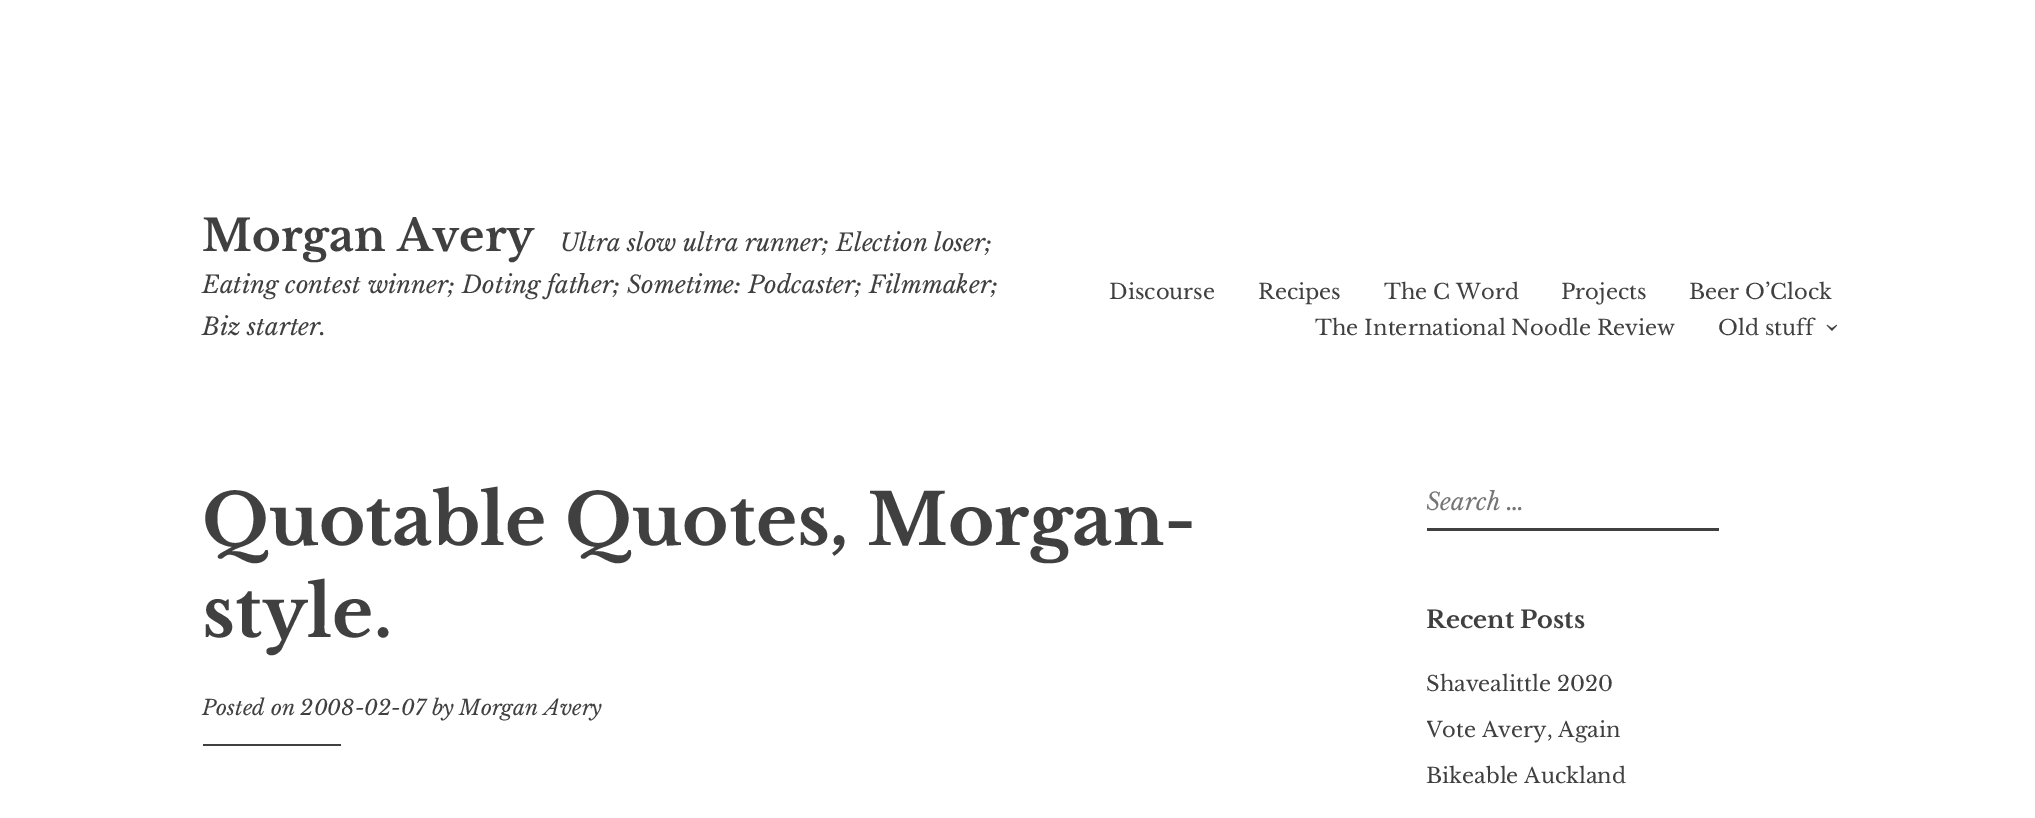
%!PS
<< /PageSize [2035 818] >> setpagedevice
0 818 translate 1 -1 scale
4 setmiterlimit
1 setgray
0 0 2035 818 rectfill
/LibreBaskerville-Bold [43.5 0 0 -43.5 0 0] selectfont
0.251 setgray
202 251 moveto (Morgan Avery) show
/LibreBaskerville-Italic [24 0 0 -24 0 0] selectfont
560 251 moveto (Ultra slow ultra runner; Election loser;) show
202 293 moveto (Eating contest winner; Doting father; Sometime: Podcaster; Filmmaker;) show
202 335 moveto (Biz starter.) show
/LibreBaskerville-Regular [21 0 0 -21 0 0] selectfont
1109 299 moveto (Discourse) show
1258 299 moveto (Recipes) show
1384 299 moveto (The C Word) show
1561 299 moveto (Projects) show
1689 299 moveto (Beer O’Clock) show
1315 335 moveto (The International Noodle Review) show
1718 335 moveto (Old stuff) show
/LibreBaskerville-Regular [34 0 0 -34 0 0] selectfont
gsave 1823 322 translate 90 rotate 0 0 moveto (›) show grestore
/LibreBaskerville-Bold [70.5 0 0 -70.5 0 0] selectfont
202 545 moveto (Quotable Quotes, Morgan-) show
202 637 moveto (style.) show
/LibreBaskerville-Italic [21 0 0 -21 0 0] selectfont
202 715 moveto (Posted on 2008-02-07 by Morgan Avery) show
203 744 138 2 rectfill
1427 528 292 3 rectfill
gsave
1427 486 286 30 rectclip
/LibreBaskerville-Italic [24 0 0 -24 0 0] selectfont
0.459 setgray
1426 510 moveto (Search …) show
grestore
gsave
1427 605 408 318 rectclip
/LibreBaskerville-Bold [24 0 0 -24 0 0] selectfont
1426 628 moveto (Recent Posts) show
grestore
/LibreBaskerville-Regular [21 0 0 -21 0 0] selectfont
1426 691 moveto (Shavealittle 2020) show
gsave
1427 605 408 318 rectclip
1426 737 moveto (Vote Avery, Again) show
grestore
1426 783 moveto (Bikeable Auckland) show
showpage
